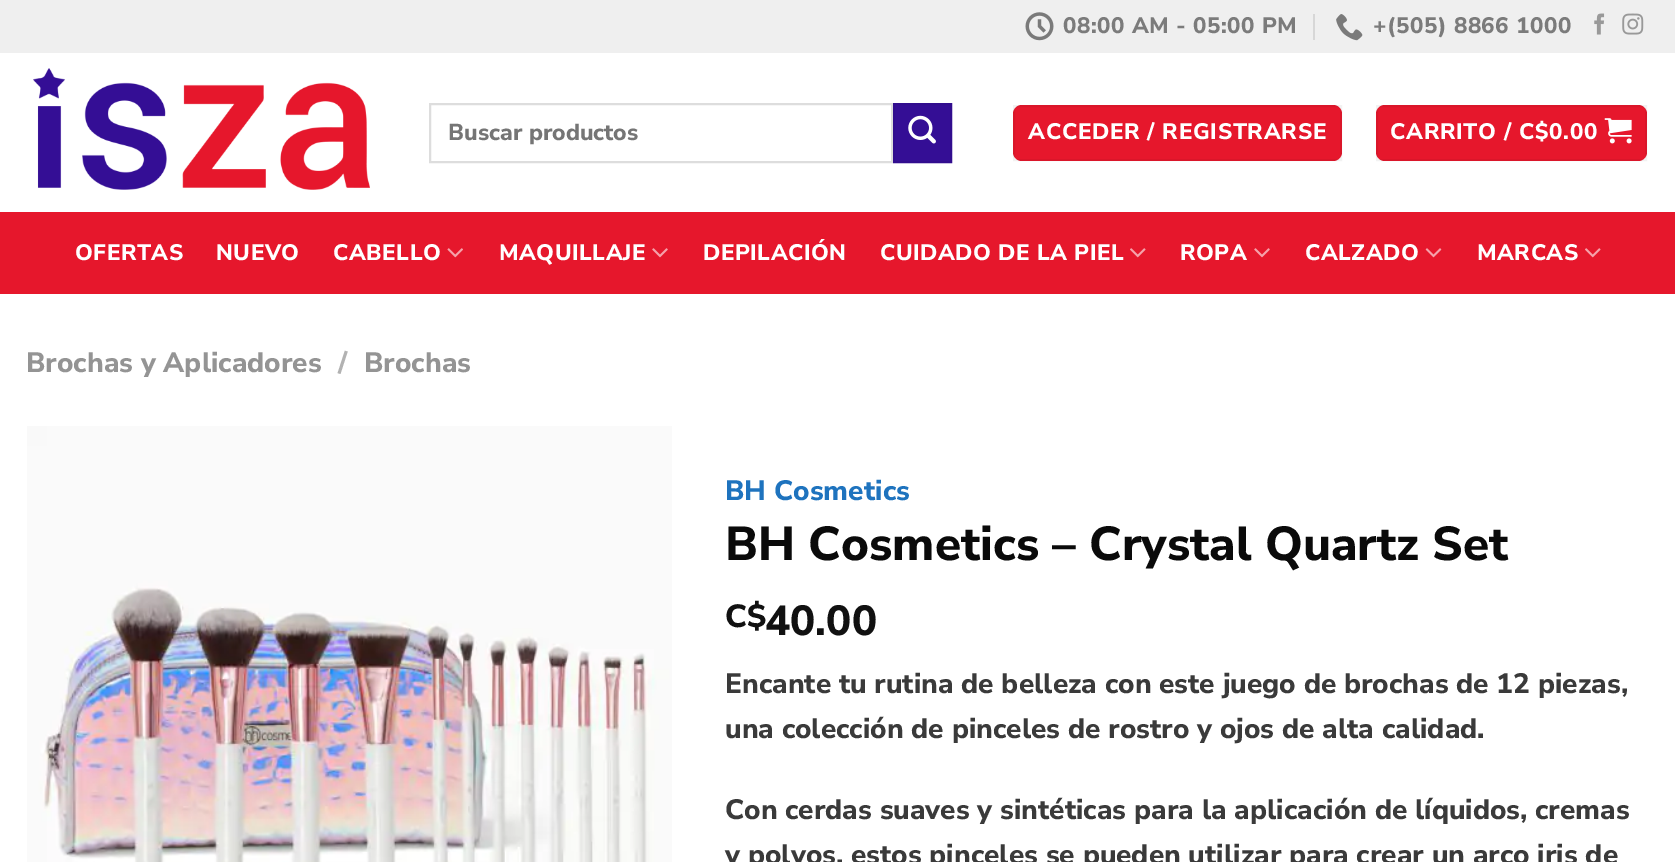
%!PS
<< /PageSize [1675 862] /PageUsesTransparency true >> setpagedevice
/alpha { dup .setfillconstantalpha .setstrokeconstantalpha } def
/roundrect { 5 dict begin { /r /h /w /y /x } { exch def } forall
  x r add y moveto x w add y 2 copy h add r arct x w add y h add x 1 index r arct
  x y h add x y r arct x y 2 copy exch w add exch r arct closepath end } def
/picture { 5 dict begin { /h /w /y /x /name } { exch def } forall
  gsave x y translate w h scale
  w h 8 [w 0 0 h 0 0] name (r) file false 3 colorimage grestore end } def
0 .pushpdf14devicefilter
0 862 translate 1 -1 scale
4 setmiterlimit
1 setgray
0 0 1675 862 rectfill
0.937 setgray
0 0 1675 53 rectfill
(img1.rgb) 1025 12 29 29 picture
/NunitoSans-ExtraBold [22.4 0 0 -22.4 0 0] selectfont
0.482 setgray
1063 33 moveto 0.5 0 (08:00 AM - 05:00 PM) ashow
0.843 setgray
1313 14 2 26 rectfill
(img2.rgb) 1336 14 27 27 picture
0.482 setgray
1373 33 moveto 0.5 0 (+\(505\) 8866 1000) ashow
(img3.rgb) 1594 13 11 22 picture
(img4.rgb) 1622 13 22 22 picture
(img5.rgb) 33 68 337 122 picture
0.867 setgray
2 setlinewidth
430 104 462 58 rectstroke
/NunitoSans-ExtraBold [23 0 0 -23 0 0] selectfont
0.459 setgray
448 140 moveto (Buscar productos) show
0.204 0.055 0.584 setrgbcolor
newpath 894 104 moveto 951 104 lineto 951 162 lineto 894 162 lineto closepath gsave fill grestore
0.192 0.051 0.557 setrgbcolor
stroke
(img6.rgb) 908 115 28 29 picture
0.902 0.09 0.173 setrgbcolor
1013 105 329 56 9 roundrect fill
0.05 alpha
0 setgray
1014 106 327 54 rectstroke
/NunitoSans-ExtraBold [22.4 0 0 -22.4 0 0] selectfont
1 alpha
1 setgray
1028 139 moveto 0.7 0 (ACCEDER / REGISTRARSE) ashow
0.902 0.09 0.173 setrgbcolor
1376 105 271 56 9 roundrect fill
0.05 alpha
0 setgray
1377 106 269 54 rectstroke
1 alpha
1 setgray
1390 139 moveto 0.7 0 (CARRITO / C$0.00) ashow
(img7.rgb) 1604 118 28 26 picture
0.902 0.09 0.173 setrgbcolor
0 212 1675 82 rectfill
1 setgray
75 260 moveto 0.5 0 (OFERTAS) ashow
216 260 moveto 0.5 0 (NUEVO) ashow
333 260 moveto 0.5 0 (CABELLO) ashow
(img8.rgb) 447 248 16 10 picture
499 260 moveto 0.5 0 (MAQUILLAJE) ashow
(img9.rgb) 652 248 16 10 picture
703 260 moveto 0.5 0 (DEPILACIÓN) ashow
880 260 moveto 0.5 0 (CUIDADO DE LA PIEL) ashow
(img10.rgb) 1130 248 16 10 picture
1180 260 moveto 0.5 0 (ROPA) ashow
(img9.rgb) 1254 248 16 10 picture
1305 260 moveto 0.5 0 (CALZADO) ashow
(img11.rgb) 1425 248 17 10 picture
1477 260 moveto 0.5 0 (MARCAS) ashow
(img10.rgb) 1585 248 16 10 picture
/NunitoSans-ExtraBold [28 0 0 -28 0 0] selectfont
0.58 setgray
26 372 moveto (Brochas y Aplicadores) show
0.698 setgray
338 372 moveto (/) show
0.58 setgray
364 372 moveto (Brochas) show
(img12.rgb) 27 426 645 436 picture
0.118 0.451 0.745 setrgbcolor
725 500 moveto (BH Cosmetics) show
/NunitoSans-ExtraBold [47.6 0 0 -47.6 0 0] selectfont
0.039 setgray
725 560 moveto (BH Cosmetics – Crystal Quartz Set) show
/NunitoSans-ExtraBold [32 0 0 -32 0 0] selectfont
0.067 setgray
725 627 moveto (C$) show
/NunitoSans-ExtraBold [42 0 0 -42 0 0] selectfont
765 635 moveto (40.00) show
/NunitoSans-ExtraBold [28 0 0 -28 0 0] selectfont
0.227 setgray
725 693 moveto (Encante tu rutina de belleza con este juego de brochas de 12 piezas,) show
725 738 moveto (una colección de pinceles de rostro y ojos de alta calidad.) show
725 819 moveto (Con cerdas suaves y sintéticas para la aplicación de líquidos, cremas) show
725 864 moveto (y polvos, estos pinceles se pueden utilizar para crear un arco iris de) show
.poppdf14devicefilter showpage
